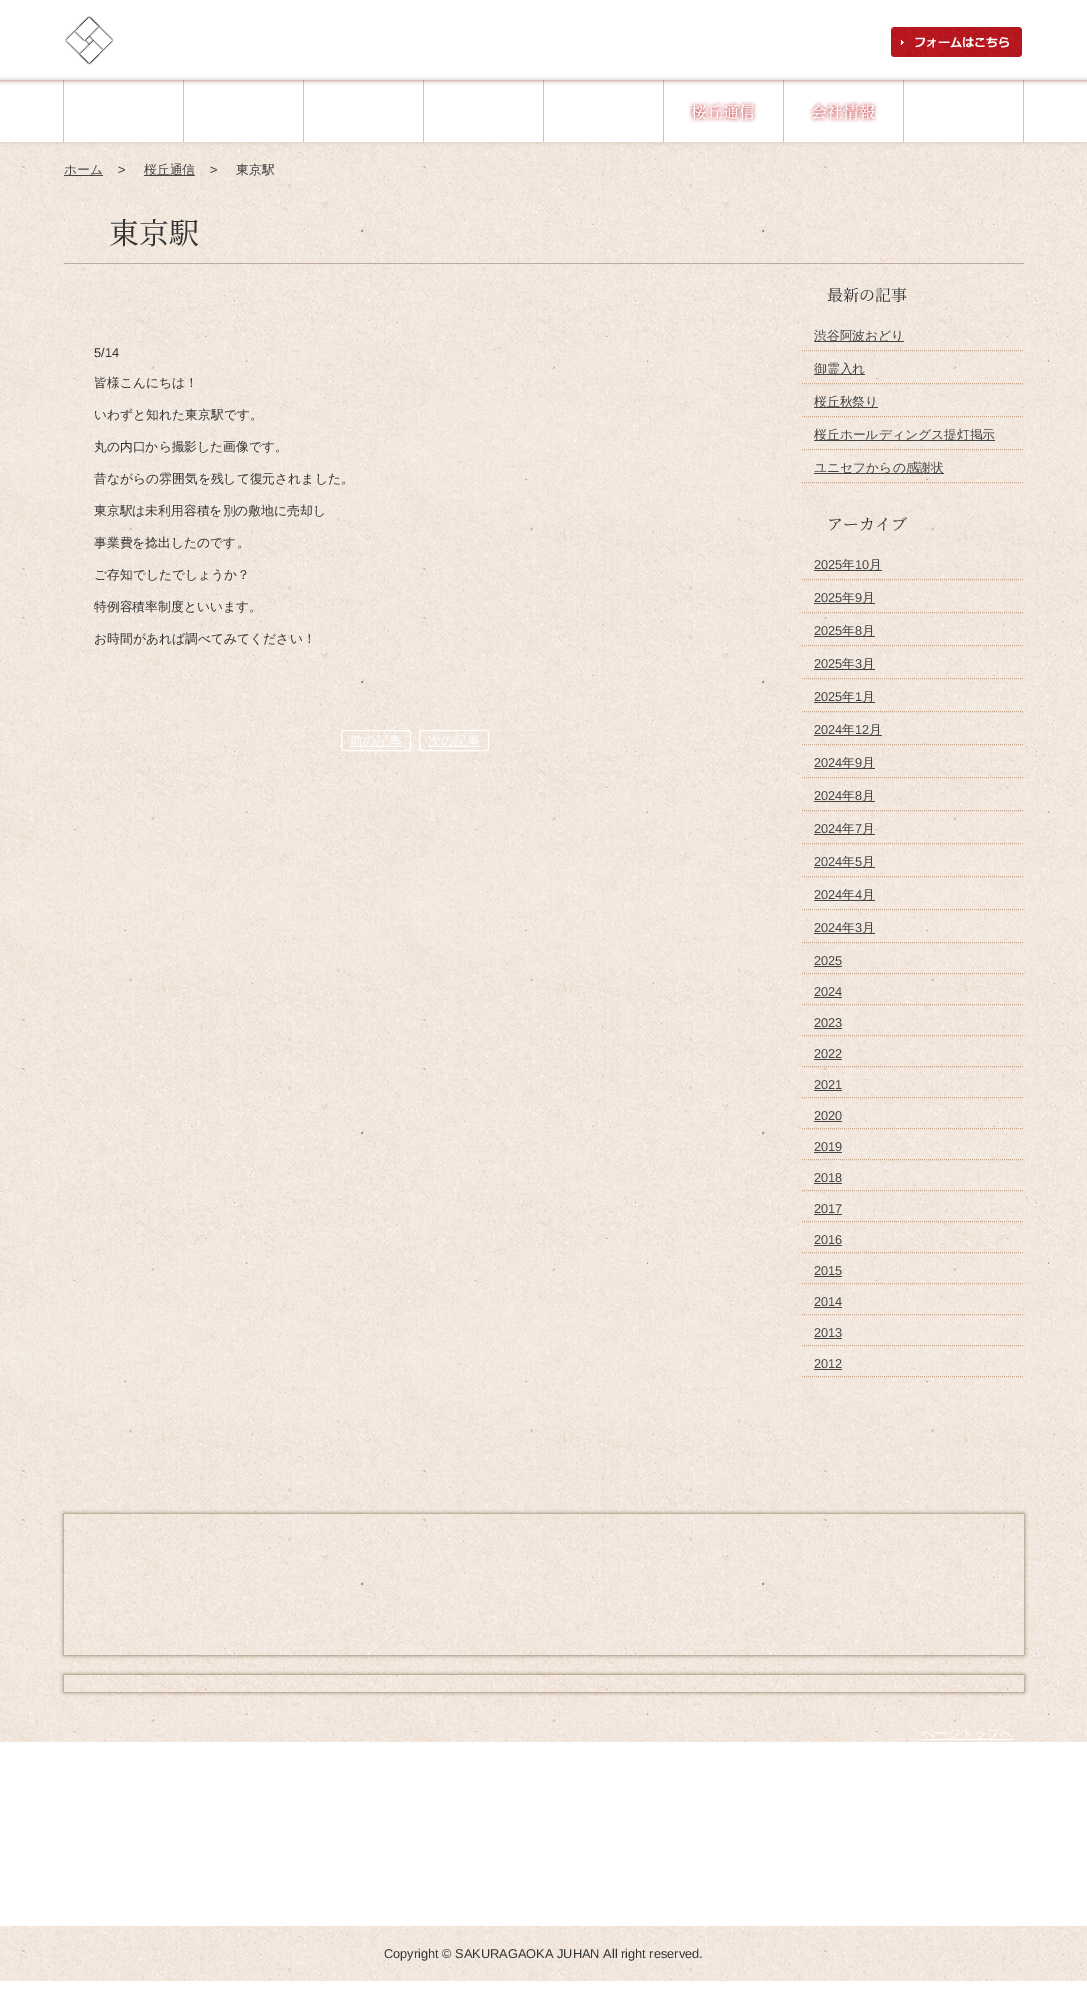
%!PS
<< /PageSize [1087 2002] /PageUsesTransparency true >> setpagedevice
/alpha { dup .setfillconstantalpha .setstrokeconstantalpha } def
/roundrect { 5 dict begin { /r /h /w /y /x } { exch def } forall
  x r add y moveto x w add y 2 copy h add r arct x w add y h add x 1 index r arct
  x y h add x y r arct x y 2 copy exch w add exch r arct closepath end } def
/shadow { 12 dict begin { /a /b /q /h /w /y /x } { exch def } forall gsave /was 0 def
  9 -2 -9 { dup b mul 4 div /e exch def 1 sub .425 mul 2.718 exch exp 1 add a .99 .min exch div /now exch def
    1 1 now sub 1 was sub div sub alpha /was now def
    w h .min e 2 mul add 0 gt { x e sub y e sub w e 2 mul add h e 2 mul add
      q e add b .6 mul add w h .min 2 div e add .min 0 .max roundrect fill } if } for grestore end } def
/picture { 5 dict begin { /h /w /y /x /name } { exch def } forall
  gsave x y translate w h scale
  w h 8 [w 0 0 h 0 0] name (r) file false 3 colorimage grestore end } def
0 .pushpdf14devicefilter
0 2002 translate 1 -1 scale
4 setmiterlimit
1 setgray
0 0 1087 2002 rectfill
(img5.rgb) 0 142 1087 1600 picture
gsave
newpath 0 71 moveto 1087 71 lineto 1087 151 lineto 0 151 lineto closepath 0 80 moveto 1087 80 lineto 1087 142 lineto 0 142 lineto closepath eoclip newpath
0.808 0.784 0.757 setrgbcolor
0 80 1087 62 0 2.5 1 shadow
grestore
0.914 0.71 0.714 setrgbcolor
63 80 1 62 rectfill
183 80 1 62 rectfill
303 80 1 62 rectfill
423 80 1 62 rectfill
543 80 1 62 rectfill
663 80 1 62 rectfill
783 80 1 62 rectfill
903 80 1 62 rectfill
1023 80 1 62 rectfill
gsave
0 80 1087 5 rectclip
0.694 0.388 0.396 setrgbcolor
0 0 1087 80 0 2.5 1 shadow
grestore
(img1.rgb) 65 16 49 49 picture
(img2.rgb) 891 27 131 30 picture
(img3.rgb) 688 101 69 22 picture
(img4.rgb) 809 101 68 22 picture
0.267 setgray
64 175 39 1 rectfill
/WenQuanYiZenHei-Medium [12.8 0 0 -12.8 0 0] selectfont
64 174 moveto (ホーム) show
/LiberationSans-Regular [12.8 0 0 -12.8 0 0] selectfont
0.2 setgray
118 174 moveto (>) show
0.267 setgray
144 175 51 1 rectfill
/WenQuanYiZenHei-Medium [12.8 0 0 -12.8 0 0] selectfont
144 174 moveto (桜丘通信) show
/LiberationSans-Regular [12.8 0 0 -12.8 0 0] selectfont
0.2 setgray
210 174 moveto (>) show
/WenQuanYiZenHei-Medium [12.8 0 0 -12.8 0 0] selectfont
236 174 moveto (東京駅) show
/NotoSerifJP-Regular [30 0 0 -30 0 0] selectfont
109 244 moveto (東京駅) show
0.749 0.659 0.667 setrgbcolor
64 263 960 1 rectfill
/LiberationSans-Regular [12.8 0 0 -12.8 0 0] selectfont
0.2 setgray
94 357 moveto (5/14) show
/WenQuanYiZenHei-Medium [12.8 0 0 -12.8 0 0] selectfont
94 387 moveto (皆様こんにちは！) show
94 419 moveto (いわずと知れた東京駅です。) show
94 451 moveto (丸の内口から撮影した画像です。) show
94 483 moveto (昔ながらの雰囲気を残して復元されました。) show
94 515 moveto (東京駅は未利用容積を別の敷地に売却し) show
94 547 moveto (事業費を捻出したのです。) show
94 579 moveto (ご存知でしたでしょうか？) show
94 611 moveto (特例容積率制度といいます。) show
94 643 moveto (お時間があれば調べてみてください！) show
1 setgray
341.5 730.5 69 20 2.5 roundrect stroke
350 746 52 1 rectfill
350 745 moveto (前の記事) show
419.5 730.5 69 20 2.5 roundrect stroke
428 746 52 1 rectfill
428 745 moveto (次の記事) show
/NotoSerifJP-Regular [16 0 0 -16 0 0] selectfont
0.2 setgray
827 301 moveto (最新の記事) show
0.769 0.659 0.565 setrgbcolor
[1 1] 0 setdash
newpath 802 350.5 moveto 1024 350.5 lineto stroke
0.267 setgray
814 341 90 1 rectfill
/WenQuanYiZenHei-Medium [12.8 0 0 -12.8 0 0] selectfont
814 340 moveto (渋谷阿波おどり) show
0.769 0.659 0.565 setrgbcolor
newpath 802 383.5 moveto 1024 383.5 lineto stroke
0.267 setgray
814 374 51 1 rectfill
814 373 moveto (御霊入れ) show
0.769 0.659 0.565 setrgbcolor
newpath 802 416.5 moveto 1024 416.5 lineto stroke
0.267 setgray
814 407 64 1 rectfill
814 406 moveto (桜丘秋祭り) show
0.769 0.659 0.565 setrgbcolor
newpath 802 449.5 moveto 1024 449.5 lineto stroke
0.267 setgray
814 440 181 1 rectfill
814 439 moveto (桜丘ホールディングス提灯掲示) show
0.769 0.659 0.565 setrgbcolor
newpath 802 482.5 moveto 1024 482.5 lineto stroke
0.267 setgray
814 473 130 1 rectfill
814 472 moveto (ユニセフからの感謝状) show
/NotoSerifJP-Regular [16 0 0 -16 0 0] selectfont
0.2 setgray
827 530 moveto (アーカイブ) show
0.769 0.659 0.565 setrgbcolor
newpath 802 579.5 moveto 1024 579.5 lineto stroke
/LiberationSans-Regular [12.8 0 0 -12.8 0 0] selectfont
0.267 setgray
814 569 moveto (2025) show
814 570 68 1 rectfill
/WenQuanYiZenHei-Medium [12.8 0 0 -12.8 0 0] selectfont
842 569 moveto (年) show
/LiberationSans-Regular [12.8 0 0 -12.8 0 0] selectfont
855 569 moveto (10) show
/WenQuanYiZenHei-Medium [12.8 0 0 -12.8 0 0] selectfont
869 569 moveto (月) show
0.769 0.659 0.565 setrgbcolor
newpath 802 612.5 moveto 1024 612.5 lineto stroke
/LiberationSans-Regular [12.8 0 0 -12.8 0 0] selectfont
0.267 setgray
814 602 moveto (2025) show
814 603 61 1 rectfill
/WenQuanYiZenHei-Medium [12.8 0 0 -12.8 0 0] selectfont
842 602 moveto (年) show
/LiberationSans-Regular [12.8 0 0 -12.8 0 0] selectfont
855 602 moveto (9) show
/WenQuanYiZenHei-Medium [12.8 0 0 -12.8 0 0] selectfont
862 602 moveto (月) show
0.769 0.659 0.565 setrgbcolor
newpath 802 645.5 moveto 1024 645.5 lineto stroke
/LiberationSans-Regular [12.8 0 0 -12.8 0 0] selectfont
0.267 setgray
814 635 moveto (2025) show
814 636 61 1 rectfill
/WenQuanYiZenHei-Medium [12.8 0 0 -12.8 0 0] selectfont
842 635 moveto (年) show
/LiberationSans-Regular [12.8 0 0 -12.8 0 0] selectfont
855 635 moveto (8) show
/WenQuanYiZenHei-Medium [12.8 0 0 -12.8 0 0] selectfont
862 635 moveto (月) show
0.769 0.659 0.565 setrgbcolor
newpath 802 678.5 moveto 1024 678.5 lineto stroke
/LiberationSans-Regular [12.8 0 0 -12.8 0 0] selectfont
0.267 setgray
814 668 moveto (2025) show
814 669 61 1 rectfill
/WenQuanYiZenHei-Medium [12.8 0 0 -12.8 0 0] selectfont
842 668 moveto (年) show
/LiberationSans-Regular [12.8 0 0 -12.8 0 0] selectfont
855 668 moveto (3) show
/WenQuanYiZenHei-Medium [12.8 0 0 -12.8 0 0] selectfont
862 668 moveto (月) show
0.769 0.659 0.565 setrgbcolor
newpath 802 711.5 moveto 1024 711.5 lineto stroke
/LiberationSans-Regular [12.8 0 0 -12.8 0 0] selectfont
0.267 setgray
814 701 moveto (2025) show
814 702 61 1 rectfill
/WenQuanYiZenHei-Medium [12.8 0 0 -12.8 0 0] selectfont
842 701 moveto (年) show
/LiberationSans-Regular [12.8 0 0 -12.8 0 0] selectfont
855 701 moveto (1) show
/WenQuanYiZenHei-Medium [12.8 0 0 -12.8 0 0] selectfont
862 701 moveto (月) show
0.769 0.659 0.565 setrgbcolor
newpath 802 744.5 moveto 1024 744.5 lineto stroke
/LiberationSans-Regular [12.8 0 0 -12.8 0 0] selectfont
0.267 setgray
814 734 moveto (2024) show
814 735 68 1 rectfill
/WenQuanYiZenHei-Medium [12.8 0 0 -12.8 0 0] selectfont
842 734 moveto (年) show
/LiberationSans-Regular [12.8 0 0 -12.8 0 0] selectfont
855 734 moveto (12) show
/WenQuanYiZenHei-Medium [12.8 0 0 -12.8 0 0] selectfont
869 734 moveto (月) show
0.769 0.659 0.565 setrgbcolor
newpath 802 777.5 moveto 1024 777.5 lineto stroke
/LiberationSans-Regular [12.8 0 0 -12.8 0 0] selectfont
0.267 setgray
814 767 moveto (2024) show
814 768 61 1 rectfill
/WenQuanYiZenHei-Medium [12.8 0 0 -12.8 0 0] selectfont
842 767 moveto (年) show
/LiberationSans-Regular [12.8 0 0 -12.8 0 0] selectfont
855 767 moveto (9) show
/WenQuanYiZenHei-Medium [12.8 0 0 -12.8 0 0] selectfont
862 767 moveto (月) show
0.769 0.659 0.565 setrgbcolor
newpath 802 810.5 moveto 1024 810.5 lineto stroke
/LiberationSans-Regular [12.8 0 0 -12.8 0 0] selectfont
0.267 setgray
814 800 moveto (2024) show
814 801 61 1 rectfill
/WenQuanYiZenHei-Medium [12.8 0 0 -12.8 0 0] selectfont
842 800 moveto (年) show
/LiberationSans-Regular [12.8 0 0 -12.8 0 0] selectfont
855 800 moveto (8) show
/WenQuanYiZenHei-Medium [12.8 0 0 -12.8 0 0] selectfont
862 800 moveto (月) show
0.769 0.659 0.565 setrgbcolor
newpath 802 843.5 moveto 1024 843.5 lineto stroke
/LiberationSans-Regular [12.8 0 0 -12.8 0 0] selectfont
0.267 setgray
814 833 moveto (2024) show
814 834 61 1 rectfill
/WenQuanYiZenHei-Medium [12.8 0 0 -12.8 0 0] selectfont
842 833 moveto (年) show
/LiberationSans-Regular [12.8 0 0 -12.8 0 0] selectfont
855 833 moveto (7) show
/WenQuanYiZenHei-Medium [12.8 0 0 -12.8 0 0] selectfont
862 833 moveto (月) show
0.769 0.659 0.565 setrgbcolor
newpath 802 876.5 moveto 1024 876.5 lineto stroke
/LiberationSans-Regular [12.8 0 0 -12.8 0 0] selectfont
0.267 setgray
814 866 moveto (2024) show
814 867 61 1 rectfill
/WenQuanYiZenHei-Medium [12.8 0 0 -12.8 0 0] selectfont
842 866 moveto (年) show
/LiberationSans-Regular [12.8 0 0 -12.8 0 0] selectfont
855 866 moveto (5) show
/WenQuanYiZenHei-Medium [12.8 0 0 -12.8 0 0] selectfont
862 866 moveto (月) show
0.769 0.659 0.565 setrgbcolor
newpath 802 909.5 moveto 1024 909.5 lineto stroke
/LiberationSans-Regular [12.8 0 0 -12.8 0 0] selectfont
0.267 setgray
814 899 moveto (2024) show
814 900 61 1 rectfill
/WenQuanYiZenHei-Medium [12.8 0 0 -12.8 0 0] selectfont
842 899 moveto (年) show
/LiberationSans-Regular [12.8 0 0 -12.8 0 0] selectfont
855 899 moveto (4) show
/WenQuanYiZenHei-Medium [12.8 0 0 -12.8 0 0] selectfont
862 899 moveto (月) show
0.769 0.659 0.565 setrgbcolor
newpath 802 942.5 moveto 1024 942.5 lineto stroke
/LiberationSans-Regular [12.8 0 0 -12.8 0 0] selectfont
0.267 setgray
814 932 moveto (2024) show
814 933 61 1 rectfill
/WenQuanYiZenHei-Medium [12.8 0 0 -12.8 0 0] selectfont
842 932 moveto (年) show
/LiberationSans-Regular [12.8 0 0 -12.8 0 0] selectfont
855 932 moveto (3) show
/WenQuanYiZenHei-Medium [12.8 0 0 -12.8 0 0] selectfont
862 932 moveto (月) show
0.769 0.659 0.565 setrgbcolor
newpath 802 973.5 moveto 1024 973.5 lineto stroke
/LiberationSans-Regular [12.8 0 0 -12.8 0 0] selectfont
0.267 setgray
814 965 moveto (2025) show
814 966 28 1 rectfill
0.769 0.659 0.565 setrgbcolor
newpath 802 1004.5 moveto 1024 1004.5 lineto stroke
0.267 setgray
814 996 moveto (2024) show
814 997 28 1 rectfill
0.769 0.659 0.565 setrgbcolor
newpath 802 1035.5 moveto 1024 1035.5 lineto stroke
0.267 setgray
814 1027 moveto (2023) show
814 1028 28 1 rectfill
0.769 0.659 0.565 setrgbcolor
newpath 802 1066.5 moveto 1024 1066.5 lineto stroke
0.267 setgray
814 1058 moveto (2022) show
814 1059 28 1 rectfill
0.769 0.659 0.565 setrgbcolor
newpath 802 1097.5 moveto 1024 1097.5 lineto stroke
0.267 setgray
814 1089 moveto (2021) show
814 1090 28 1 rectfill
0.769 0.659 0.565 setrgbcolor
newpath 802 1128.5 moveto 1024 1128.5 lineto stroke
0.267 setgray
814 1120 moveto (2020) show
814 1121 28 1 rectfill
0.769 0.659 0.565 setrgbcolor
newpath 802 1159.5 moveto 1024 1159.5 lineto stroke
0.267 setgray
814 1151 moveto (2019) show
814 1152 28 1 rectfill
0.769 0.659 0.565 setrgbcolor
newpath 802 1190.5 moveto 1024 1190.5 lineto stroke
0.267 setgray
814 1182 moveto (2018) show
814 1183 28 1 rectfill
0.769 0.659 0.565 setrgbcolor
newpath 802 1221.5 moveto 1024 1221.5 lineto stroke
0.267 setgray
814 1213 moveto (2017) show
814 1214 28 1 rectfill
0.769 0.659 0.565 setrgbcolor
newpath 802 1252.5 moveto 1024 1252.5 lineto stroke
0.267 setgray
814 1244 moveto (2016) show
814 1245 28 1 rectfill
0.769 0.659 0.565 setrgbcolor
newpath 802 1283.5 moveto 1024 1283.5 lineto stroke
0.267 setgray
814 1275 moveto (2015) show
814 1276 28 1 rectfill
0.769 0.659 0.565 setrgbcolor
newpath 802 1314.5 moveto 1024 1314.5 lineto stroke
0.267 setgray
814 1306 moveto (2014) show
814 1307 28 1 rectfill
0.769 0.659 0.565 setrgbcolor
newpath 802 1345.5 moveto 1024 1345.5 lineto stroke
0.267 setgray
814 1337 moveto (2013) show
814 1338 28 1 rectfill
0.769 0.659 0.565 setrgbcolor
newpath 802 1376.5 moveto 1024 1376.5 lineto stroke
0.267 setgray
814 1368 moveto (2012) show
814 1369 28 1 rectfill
gsave
newpath 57 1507 moveto 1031 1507 lineto 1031 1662 lineto 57 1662 lineto closepath 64 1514 moveto 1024 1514 lineto 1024 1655 lineto 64 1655 lineto closepath eoclip newpath
0.451 0.369 0.247 setrgbcolor
64 1514 960 141 0 2 1 shadow
grestore
gsave
newpath 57 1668 moveto 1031 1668 lineto 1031 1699 lineto 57 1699 lineto closepath 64 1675 moveto 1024 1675 lineto 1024 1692 lineto 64 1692 lineto closepath eoclip newpath
0.451 0.369 0.247 setrgbcolor
64 1675 960 17 0 2 1 shadow
grestore
1 setgray
922 1739 92 1 rectfill
/WenQuanYiZenHei-Medium [12.8 0 0 -12.8 0 0] selectfont
922 1738 moveto (ページトップへ) show
(img6.rgb) 0 1926 1087 55 picture
/LiberationSans-Regular [12.8 0 0 -12.8 0 0] selectfont
0.2 setgray
384 1958 moveto (Copyright © SAKURAGAOKA JUHAN All right reserved.) show
.poppdf14devicefilter showpage
